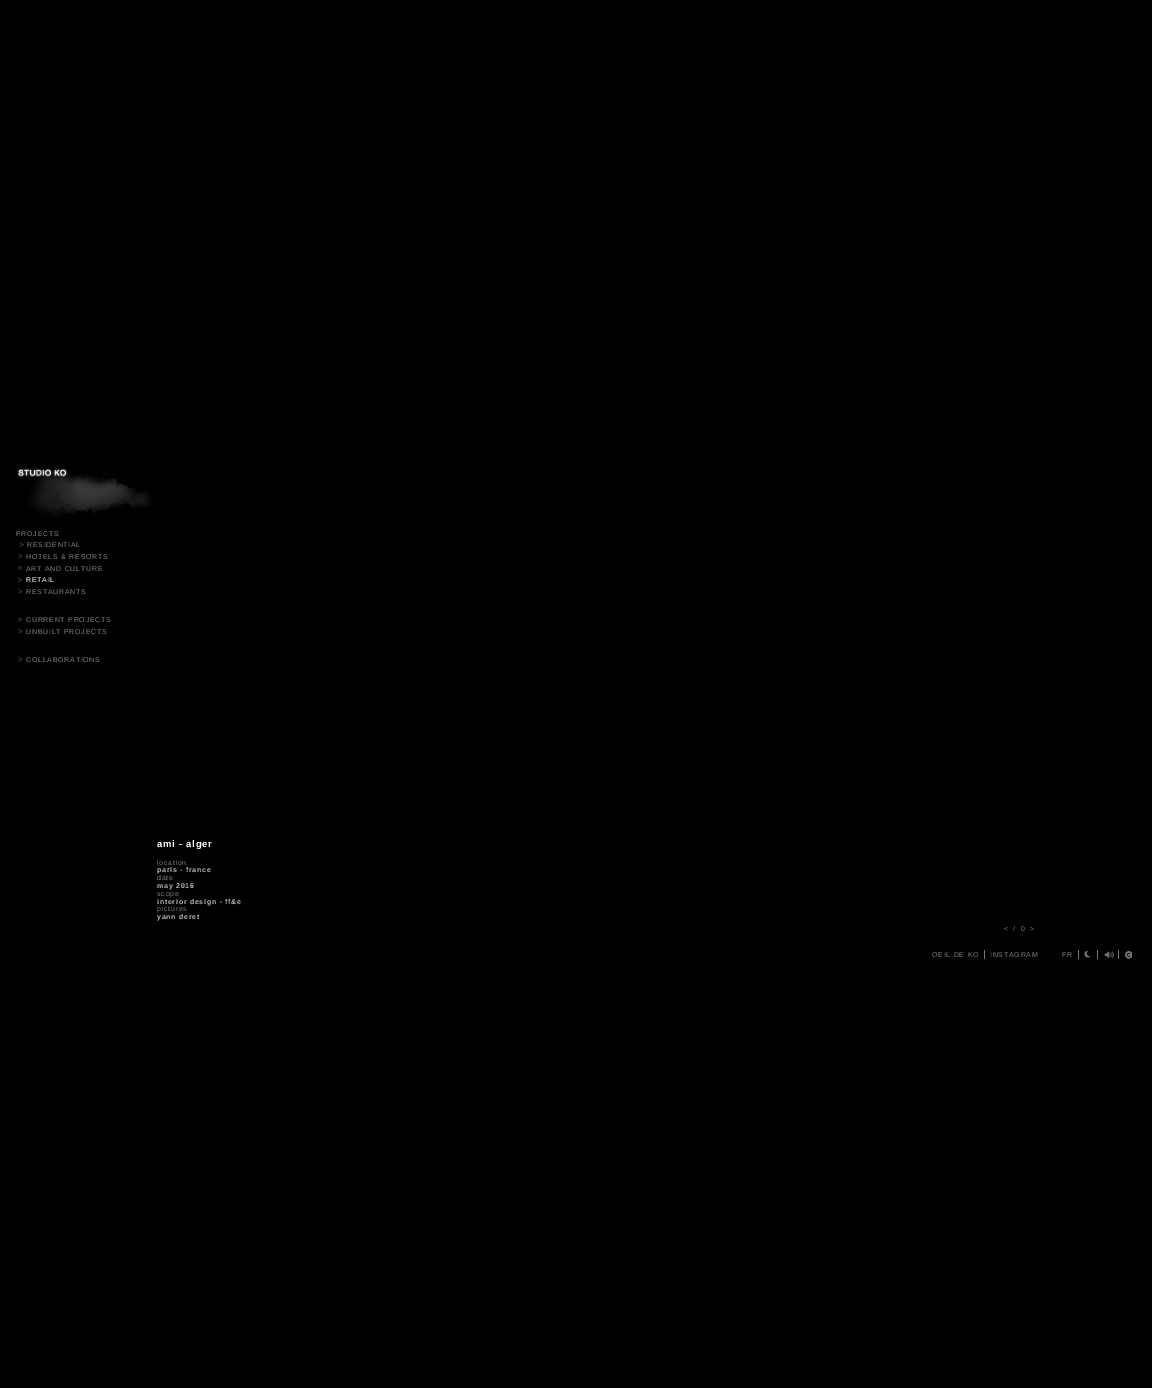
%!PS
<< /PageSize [1152 1388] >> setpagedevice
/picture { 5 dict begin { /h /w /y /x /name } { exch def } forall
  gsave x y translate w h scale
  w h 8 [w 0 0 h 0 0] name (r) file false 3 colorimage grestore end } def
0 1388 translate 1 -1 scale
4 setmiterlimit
0 setgray
0 0 1152 1388 rectfill
(img1.rgb) 17 468 134 50 picture
/LiberationSans-Regular [7 0 0 -7 0 0] selectfont
0.498 setgray
16 536 moveto 0.75 0 (PROJECTS) ashow
(img2.rgb) 19 542 5 5 picture
27 547 moveto 0.75 0 (RESIDENTIAL) ashow
(img3.rgb) 17 553 6 6 picture
26 559 moveto 0.75 0 (HOTELS & RESORTS) ashow
(img4.rgb) 17 565 6 5 picture
26 571 moveto 0.75 0 (ART AND CULTURE) ashow
(img5.rgb) 17 577 6 5 picture
1 setgray
26 582 moveto 0.75 0 (RETAIL) ashow
(img6.rgb) 17 589 6 5 picture
0.498 setgray
26 594 moveto 0.75 0 (RESTAURANTS) ashow
(img7.rgb) 17 617 6 5 picture
26 622 moveto 0.75 0 (CURRENT PROJECTS) ashow
(img8.rgb) 17 628 6 6 picture
26 634 moveto 0.75 0 (UNBUILT PROJECTS) ashow
(img9.rgb) 17 656 6 6 picture
26 662 moveto 0.75 0 (COLLABORATIONS) ashow
932 957 moveto 0.75 0 (OEIL DE KO) ashow
0.471 setgray
984 950 1 9 rectfill
0.498 setgray
990 957 moveto 0.75 0 (INSTAGRAM) ashow
1062 957 moveto 0.75 0 (FR) ashow
0.471 setgray
1078 950 1 9 rectfill
(img10.rgb) 1084 951 6 7 picture
1097 950 1 9 rectfill
(img11.rgb) 1104 951 10 7 picture
1118 950 1 9 rectfill
(img12.rgb) 1125 951 7 8 picture
/LiberationSans-Bold [9.5 0 0 -9.5 0 0] selectfont
1 setgray
157 847 moveto 0.75 0 (ami - alger) ashow
/LiberationSans-Regular [7 0 0 -7 0 0] selectfont
0.498 setgray
157 865 moveto 0.75 0 (location) ashow
/LiberationSans-Bold [7 0 0 -7 0 0] selectfont
0.733 setgray
157 872 moveto 0.75 0 (paris - france) ashow
/LiberationSans-Regular [7 0 0 -7 0 0] selectfont
0.498 setgray
157 880 moveto 0.75 0 (date) ashow
/LiberationSans-Bold [7 0 0 -7 0 0] selectfont
0.733 setgray
157 888 moveto 0.75 0 (may 2016) ashow
/LiberationSans-Regular [7 0 0 -7 0 0] selectfont
0.498 setgray
157 896 moveto 0.75 0 (scope) ashow
/LiberationSans-Bold [7 0 0 -7 0 0] selectfont
0.733 setgray
157 904 moveto 0.75 0 (interior design - ff&e) ashow
/LiberationSans-Regular [7 0 0 -7 0 0] selectfont
0.498 setgray
157 911 moveto 0.75 0 (pictures) ashow
/LiberationSans-Bold [7 0 0 -7 0 0] selectfont
0.733 setgray
157 919 moveto 0.75 0 (yann deret) ashow
/LiberationSans-Regular [7 0 0 -7 0 0] selectfont
0.498 setgray
1004 931 moveto 0.75 0 (<) ashow
1013 931 moveto 0.75 0 (/) ashow
1021 931 moveto 0.75 0 (0) ashow
1030 931 moveto 0.75 0 (>) ashow
showpage
